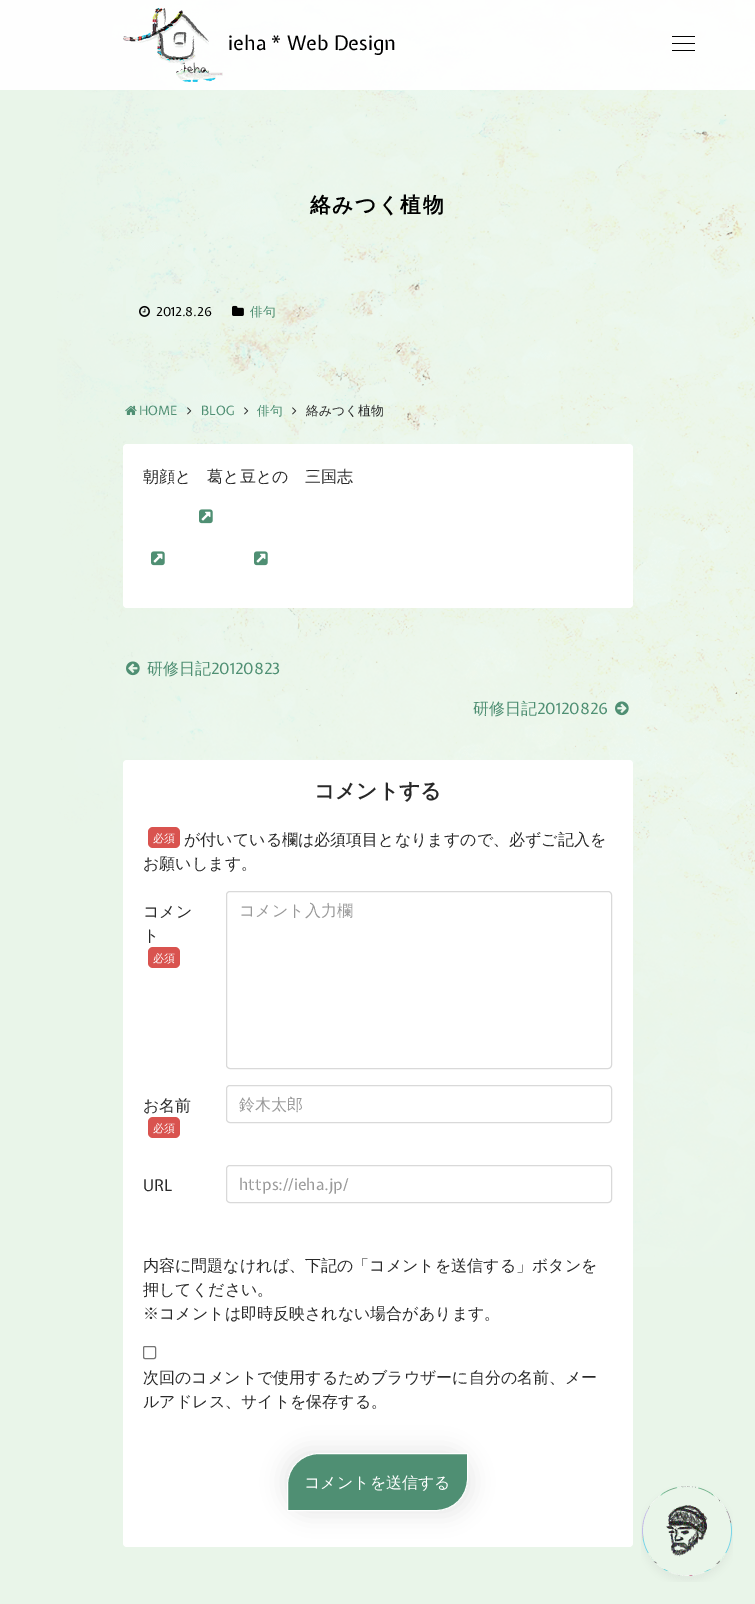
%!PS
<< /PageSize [755 1604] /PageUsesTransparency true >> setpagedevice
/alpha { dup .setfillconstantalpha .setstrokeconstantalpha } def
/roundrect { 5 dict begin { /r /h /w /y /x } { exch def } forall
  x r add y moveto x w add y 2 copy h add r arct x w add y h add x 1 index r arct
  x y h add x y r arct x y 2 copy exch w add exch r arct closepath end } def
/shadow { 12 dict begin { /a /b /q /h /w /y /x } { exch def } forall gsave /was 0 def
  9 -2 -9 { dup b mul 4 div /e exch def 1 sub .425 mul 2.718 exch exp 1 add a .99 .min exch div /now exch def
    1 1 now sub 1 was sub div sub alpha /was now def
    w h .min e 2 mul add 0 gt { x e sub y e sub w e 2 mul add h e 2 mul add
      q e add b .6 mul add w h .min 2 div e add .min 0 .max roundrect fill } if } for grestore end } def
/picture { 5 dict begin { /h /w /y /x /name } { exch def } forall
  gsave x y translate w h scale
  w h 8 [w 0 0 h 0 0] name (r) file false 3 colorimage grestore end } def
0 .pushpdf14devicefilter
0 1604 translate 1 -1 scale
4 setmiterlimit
0.914 0.961 0.914 setrgbcolor
0 0 755 1604 rectfill
(img1.rgb) 57 0 698 1267 picture
0.95 alpha
1 setgray
0 0 755 90 rectfill
1 alpha
(img2.rgb) 123 8 100 74 picture
/ExpletusSans-Regular [20 0 0 -20 0 0] selectfont
0 setgray
228 50 moveto (ieha * Web Design) show
(img3.rgb) 672 36 23 15 picture
/WenQuanYiZenHei-Bold [20.75 0 0 -20.75 0 0] selectfont
310 212 moveto 1.5 0 (絡みつく植物) ashow
0.914 0.961 0.914 setrgbcolor
newpath 126 294 moveto 288 294 lineto 289.5 294 291 295.5 291 297 curveto 291 321 lineto 123 321 lineto 123 297 lineto 123 295.5 124.5 294 126 294 curveto closepath fill
(img4.rgb) 126 294 165 27 picture
(img5.rgb) 139 305 11 12 picture
/ExpletusSans-Regular [12.75 0 0 -12.75 0 0] selectfont
0 setgray
156 316 moveto (2012.8.26) show
(img6.rgb) 232 305 12 11 picture
/WenQuanYiZenHei-Medium [12.75 0 0 -12.75 0 0] selectfont
0.31 0.561 0.451 setrgbcolor
250 316 moveto (俳句) show
(img7.rgb) 125 405 12 10 picture
/ExpletusSans-Regular [12.75 0 0 -12.75 0 0] selectfont
139 415 moveto (HOME) show
(img8.rgb) 187 407 5 8 picture
201 415 moveto (BLOG) show
(img9.rgb) 244 407 5 8 picture
/WenQuanYiZenHei-Medium [12.75 0 0 -12.75 0 0] selectfont
257 415 moveto (俳句) show
(img10.rgb) 292 407 5 8 picture
0.161 setgray
306 415 moveto (絡みつく植物) show
1 setgray
123 444 510 164 4 roundrect fill
/WenQuanYiZenHei-Medium [16 0 0 -16 0 0] selectfont
0.161 setgray
143 482 moveto (朝顔と　葛と豆との　三国志) show
(img11.rgb) 199 509 14 15 picture
(img11.rgb) 151 551 14 15 picture
(img11.rgb) 254 551 14 15 picture
(img12.rgb) 126 661 14 15 picture
0.31 0.561 0.451 setrgbcolor
147 674 moveto (研修日記) show
/ExpletusSans-Regular [16 0 0 -16 0 0] selectfont
211 674 moveto (20120823) show
/WenQuanYiZenHei-Medium [16 0 0 -16 0 0] selectfont
473 714 moveto (研修日記) show
/ExpletusSans-Regular [16 0 0 -16 0 0] selectfont
537 714 moveto (20120826) show
(img13.rgb) 615 701 14 15 picture
1 setgray
123 760 510 787 4 roundrect fill
/WenQuanYiZenHei-Bold [20.75 0 0 -20.75 0 0] selectfont
0.161 setgray
314 798 moveto (コメントする) show
0.851 0.325 0.31 setrgbcolor
148 827 32 21 5 roundrect fill
/WenQuanYiZenHei-Medium [11 0 0 -11 0 0] selectfont
1 setgray
153 842 moveto (必須) show
/WenQuanYiZenHei-Medium [16 0 0 -16 0 0] selectfont
0.161 setgray
184 845 moveto (が付いている欄は必須項目となりますので、必ずご記入を) show
143 869 moveto (お願いします。) show
143 917 moveto (コメン) show
143 941 moveto (ト) show
0.851 0.325 0.31 setrgbcolor
148 947 32 21 5 roundrect fill
/WenQuanYiZenHei-Medium [11 0 0 -11 0 0] selectfont
1 setgray
153 962 moveto (必須) show
0.851 setgray
226.5 891.5 385 177 3.5 roundrect stroke
/WenQuanYiZenHei-Medium [16 0 0 -16 0 0] selectfont
0.6 setgray
239 916 moveto (コメント入力欄) show
0.161 setgray
143 1111 moveto (お名前) show
0.851 0.325 0.31 setrgbcolor
148 1117 32 21 5 roundrect fill
/WenQuanYiZenHei-Medium [11 0 0 -11 0 0] selectfont
1 setgray
153 1132 moveto (必須) show
0.851 setgray
226.5 1085.5 385 37 3.5 roundrect stroke
/WenQuanYiZenHei-Medium [16 0 0 -16 0 0] selectfont
0.6 setgray
239 1110 moveto (鈴木太郎) show
/ExpletusSans-Regular [16 0 0 -16 0 0] selectfont
0.161 setgray
143 1191 moveto (URL) show
0.851 setgray
226.5 1165.5 385 37 3.5 roundrect stroke
0.6 setgray
239 1190 moveto (https://ieha.jp/) show
/WenQuanYiZenHei-Medium [16 0 0 -16 0 0] selectfont
0.161 setgray
143 1271 moveto (内容に問題なければ、下記の「コメントを送信する」ボタンを) show
143 1295 moveto (押してください。) show
143 1319 moveto (※コメントは即時反映されない場合があります。) show
0.463 setgray
143.5 1346.5 12 12 1.5 roundrect stroke
0.161 setgray
143 1383 moveto (次回のコメントで使用するためブラウザーに自分の名前、メー) show
143 1407 moveto (ルアドレス、サイトを保存する。) show
0.169 setgray
282 1448 191 68 37 10 0.1 shadow
0.31 0.561 0.451 setrgbcolor
newpath 319 1453.5 moveto 467.5 1453.5 lineto 467.5 1479 lineto 467.5 1496.5 453.5 1510.5 436 1510.5 curveto 287.5 1510.5 lineto 287.5 1485 lineto 287.5 1467.5 301.5 1453.5 319 1453.5 curveto closepath gsave fill grestore
1 setgray
stroke
304 1488 moveto (コメントを送信する) show
(img14.rgb) 641 1486 92 96 picture
.poppdf14devicefilter showpage
